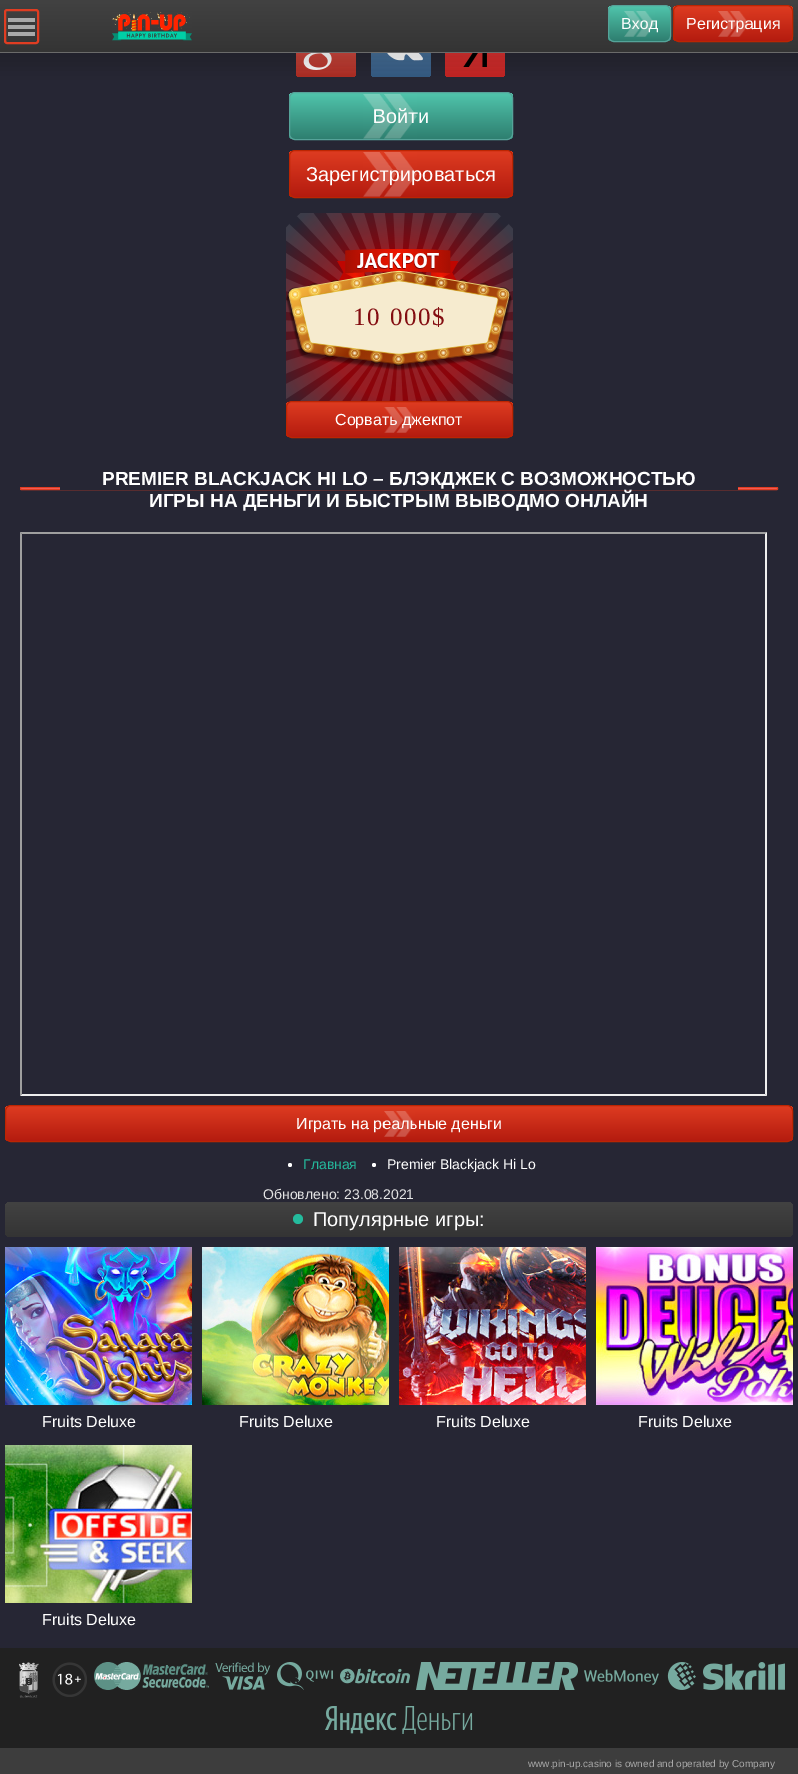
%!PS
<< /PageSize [798 1774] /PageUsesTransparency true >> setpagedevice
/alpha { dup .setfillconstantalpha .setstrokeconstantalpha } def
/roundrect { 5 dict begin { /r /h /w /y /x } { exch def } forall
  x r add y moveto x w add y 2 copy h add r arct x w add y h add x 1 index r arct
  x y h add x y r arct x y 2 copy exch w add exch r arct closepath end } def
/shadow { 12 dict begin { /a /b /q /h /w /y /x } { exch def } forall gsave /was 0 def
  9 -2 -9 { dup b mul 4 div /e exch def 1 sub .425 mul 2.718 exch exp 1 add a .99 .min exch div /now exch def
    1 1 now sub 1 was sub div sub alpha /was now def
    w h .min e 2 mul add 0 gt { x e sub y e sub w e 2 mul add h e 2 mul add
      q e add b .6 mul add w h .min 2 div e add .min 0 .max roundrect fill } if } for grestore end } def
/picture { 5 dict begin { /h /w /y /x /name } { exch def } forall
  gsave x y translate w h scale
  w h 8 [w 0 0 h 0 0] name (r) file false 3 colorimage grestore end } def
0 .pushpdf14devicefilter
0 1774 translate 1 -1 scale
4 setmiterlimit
0.149 0.149 0.204 setrgbcolor
0 0 798 1774 rectfill
gsave 296 17 60 60 4 roundrect clip newpath
<< /ShadingType 2 /ColorSpace /DeviceRGB /Coords [326 77 326 17] /Extend [true true] /Function << /FunctionType 3 /Domain [0 1] /Functions [<< /FunctionType 2 /Domain [0 1] /C0 [0.678 0.176 0.137] /C1 [0.855 0.31 0.271] /N 1 >> << /FunctionType 2 /Domain [0 1] /C0 [0.855 0.31 0.271] /C1 [0.867 0.396 0.361] /N 1 >>] /Bounds [0.5] /Encode [0 1 0 1] >> >> shfill grestore
(img4.rgb) 303 53 29 17 picture
gsave 371 17 60 60 4 roundrect clip newpath
<< /ShadingType 2 /ColorSpace /DeviceRGB /Coords [401 77 401 17] /Extend [true true] /Function << /FunctionType 3 /Domain [0 1] /Functions [<< /FunctionType 2 /Domain [0 1] /C0 [0.204 0.357 0.518] /C1 [0.306 0.463 0.631] /N 1 >> << /FunctionType 2 /Domain [0 1] /C0 [0.306 0.463 0.631] /C1 [0.4 0.545 0.702] /N 1 >>] /Bounds [0.5] /Encode [0 1 0 1] >> >> shfill grestore
(img5.rgb) 387 53 36 8 picture
gsave 445 17 60 60 4 roundrect clip newpath
<< /ShadingType 2 /ColorSpace /DeviceRGB /Coords [475 77 475 17] /Extend [true true] /Function << /FunctionType 3 /Domain [0 1] /Functions [<< /FunctionType 2 /Domain [0 1] /C0 [0.769 0.141 0.137] /C1 [0.894 0.204 0.2] /N 1 >> << /FunctionType 2 /Domain [0 1] /C0 [0.894 0.204 0.2] /C1 [0.922 0.322 0.318] /N 1 >>] /Bounds [0.5] /Encode [0 1 0 1] >> >> shfill grestore
(img6.rgb) 463 53 24 14 picture
gsave
289 92 224 48 6 roundrect clip newpath
gsave newpath 289 93 moveto 513 93 lineto 513 139 lineto 289 139 lineto closepath clip newpath
<< /ShadingType 2 /ColorSpace /DeviceRGB /Coords [401 93 401 139] /Extend [true true] /Function << /FunctionType 3 /Domain [0 1] /Functions [<< /FunctionType 2 /Domain [0 1] /C0 [0.314 0.773 0.675] /C1 [0.247 0.631 0.553] /N 1 >> << /FunctionType 2 /Domain [0 1] /C0 [0.247 0.631 0.553] /C1 [0.18 0.498 0.439] /N 1 >>] /Bounds [0.5] /Encode [0 1 0 1] >> >> shfill grestore
grestore
0.333 0.639 0.6 setrgbcolor
289.5 92.5 223 47 5.5 roundrect stroke
/LiberationSans-Regular [20 0 0 -20 0 0] selectfont
1 setgray
373 123 moveto (Войти) show
(img7.rgb) 363 94 54 45 picture
0 setgray
-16 -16 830 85 0 9 0.15 shadow
gsave newpath 0 0 moveto 798 0 lineto 798 52 lineto 0 52 lineto closepath clip newpath
<< /ShadingType 2 /ColorSpace /DeviceRGB /Coords [399 0 399 52] /Extend [true true] /Function << /FunctionType 2 /Domain [0 1] /C0 [0.259 0.259 0.259] /C1 [0.204 0.204 0.204] /N 1 >> >> shfill grestore
0.416 setgray
0 52 798 1 rectfill
0.878 0.239 0.133 setrgbcolor
2 setlinewidth
5 10 33 33 2 roundrect stroke
0.663 setgray
8 18 27 4 rectfill
8 25 27 4 rectfill
8 32 27 4 rectfill
(img1.rgb) 112 12 80 29 picture
gsave
608 5 63 37 6 roundrect clip newpath
gsave newpath 608 6 moveto 671 6 lineto 671 41 lineto 608 41 lineto closepath clip newpath
<< /ShadingType 2 /ColorSpace /DeviceRGB /Coords [640 6 640 41] /Extend [true true] /Function << /FunctionType 3 /Domain [0 1] /Functions [<< /FunctionType 2 /Domain [0 1] /C0 [0.314 0.773 0.675] /C1 [0.247 0.631 0.553] /N 1 >> << /FunctionType 2 /Domain [0 1] /C0 [0.247 0.631 0.553] /C1 [0.18 0.498 0.439] /N 1 >>] /Bounds [0.5] /Encode [0 1 0 1] >> >> shfill grestore
grestore
0.333 0.639 0.6 setrgbcolor
1 setlinewidth
608.5 5.5 62 36 5.5 roundrect stroke
/LiberationSans-Regular [16 0 0 -16 0 0] selectfont
1 setgray
621 29 moveto (Вход) show
(img2.rgb) 624 11 31 26 picture
gsave
673 5 120 37 6 roundrect clip newpath
gsave newpath 673 6 moveto 793 6 lineto 793 41 lineto 673 41 lineto closepath clip newpath
<< /ShadingType 2 /ColorSpace /DeviceRGB /Coords [733 6 733 41] /Extend [true true] /Function << /FunctionType 2 /Domain [0 1] /C0 [0.871 0.235 0.129] /C1 [0.706 0.106 0.059] /N 1 >> >> shfill grestore
grestore
0.737 0.145 0.008 setrgbcolor
673.5 5.5 119 36 5.5 roundrect stroke
1 setgray
686 29 moveto (Регистрация) show
(img3.rgb) 718 11 31 26 picture
gsave
289 150 224 48 6 roundrect clip newpath
gsave newpath 289 151 moveto 513 151 lineto 513 197 lineto 289 197 lineto closepath clip newpath
<< /ShadingType 2 /ColorSpace /DeviceRGB /Coords [401 151 401 197] /Extend [true true] /Function << /FunctionType 2 /Domain [0 1] /C0 [0.871 0.235 0.129] /C1 [0.706 0.106 0.059] /N 1 >> >> shfill grestore
grestore
0.737 0.145 0.008 setrgbcolor
289.5 150.5 223 47 5.5 roundrect stroke
/LiberationSans-Regular [20 0 0 -20 0 0] selectfont
1 setgray
306 181 moveto (Зарегистрироваться) show
(img8.rgb) 363 152 54 45 picture
0.976 0.392 0.392 setrgbcolor
20.5 487.5 757 2 0.5 roundrect gsave fill grestore
0.878 0.239 0.133 setrgbcolor
stroke
0.149 0.149 0.204 setrgbcolor
60 487 678 3 rectfill
/LiberationSans-Bold [19 0 0 -19 0 0] selectfont
1 setgray
102 485 moveto (PREMIER BLACKJACK HI LO – БЛЭКДЖЕК С ВОЗМОЖНОСТЬЮ) show
gsave
286 213 227 225 rectclip
gsave newpath 399 326 146 0 360 arc closepath clip newpath 399 326 translate 146 146 scale
<< /ShadingType 3 /ColorSpace /DeviceRGB /Coords [0 0 0 0 0 1] /Extend [true true] /Function << /FunctionType 3 /Domain [0 1] /Functions [<< /FunctionType 2 /Domain [0 1] /C0 [0.514 0.055 0.071] /C1 [0.549 0.012 0.039] /N 1 >> << /FunctionType 2 /Domain [0 1] /C0 [0.549 0.012 0.039] /C1 [0.149 0.149 0.204] /N 1 >>] /Bounds [0.5] /Encode [0 1 0 1] >> >> shfill grestore
grestore
(img9.rgb) 286 213 227 188 picture
(img10.rgb) 286 249 226 122 picture
/LiberationSerif-Regular [25 0 0 -25 0 0] selectfont
0.514 0.051 0.067 setrgbcolor
353 325 moveto 1.75 0 (10 000$) ashow
gsave
286 401 227 37 6 roundrect clip newpath
gsave newpath 286 402 moveto 513 402 lineto 513 437 lineto 286 437 lineto closepath clip newpath
<< /ShadingType 2 /ColorSpace /DeviceRGB /Coords [399 402 399 437] /Extend [true true] /Function << /FunctionType 2 /Domain [0 1] /C0 [0.871 0.235 0.129] /C1 [0.706 0.106 0.059] /N 1 >> >> shfill grestore
grestore
0.737 0.145 0.008 setrgbcolor
286.5 401.5 226 36 5.5 roundrect stroke
/LiberationSans-Regular [16 0 0 -16 0 0] selectfont
1 setgray
335 425 moveto (Сорвать джекпот) show
(img11.rgb) 384 407 32 26 picture
/LiberationSans-Bold [19 0 0 -19 0 0] selectfont
149 507 moveto (ИГРЫ НА ДЕНЬГИ И БЫСТРЫМ ВЫВОДМО ОНЛАЙН) show
0.624 setgray
newpath 20 532 moveto 767 532 lineto 765 534 lineto 22 534 lineto closepath fill
0.933 setgray
newpath 767 532 moveto 767 1096 lineto 765 1094 lineto 765 534 lineto closepath fill
newpath 767 1096 moveto 20 1096 lineto 22 1094 lineto 765 1094 lineto closepath fill
0.624 setgray
newpath 20 1096 moveto 20 532 lineto 22 534 lineto 22 1094 lineto closepath fill
gsave
5 1105 788 37 6 roundrect clip newpath
gsave newpath 5 1106 moveto 793 1106 lineto 793 1141 lineto 5 1141 lineto closepath clip newpath
<< /ShadingType 2 /ColorSpace /DeviceRGB /Coords [399 1106 399 1141] /Extend [true true] /Function << /FunctionType 2 /Domain [0 1] /C0 [0.871 0.235 0.129] /C1 [0.706 0.106 0.059] /N 1 >> >> shfill grestore
grestore
0.737 0.145 0.008 setrgbcolor
5.5 1105.5 787 36 5.5 roundrect stroke
/LiberationSans-Regular [16 0 0 -16 0 0] selectfont
1 setgray
296 1129 moveto (Играть на реальные деньги) show
(img12.rgb) 384 1111 31 26 picture
newpath 290 1165 2 0 360 arc closepath fill
/LiberationSans-Regular [14 0 0 -14 0 0] selectfont
0.141 0.733 0.616 setrgbcolor
303 1169 moveto (Главная) show
1 setgray
newpath 374 1165 2 0 360 arc closepath fill
387 1169 moveto (Premier Blackjack Hi Lo) show
0.894 setgray
263 1199 moveto (Обновлено: 23.08.2021) show
gsave 5 1202 788 35 6 roundrect clip newpath
<< /ShadingType 2 /ColorSpace /DeviceRGB /Coords [399 1202 399 1237] /Extend [true true] /Function << /FunctionType 2 /Domain [0 1] /C0 [0.259 0.259 0.259] /C1 [0.204 0.204 0.204] /N 1 >> >> shfill grestore
0.141 0.733 0.616 setrgbcolor
newpath 298 1219 5 0 360 arc closepath fill
/LiberationSans-Regular [20 0 0 -20 0 0] selectfont
1 setgray
313 1226 moveto (Популярные игры:) show
(img13.rgb) 5 1247 187 158 picture
/LiberationSans-Regular [16 0 0 -16 0 0] selectfont
42 1427 moveto (Fruits Deluxe) show
(img14.rgb) 202 1247 187 158 picture
239 1427 moveto (Fruits Deluxe) show
(img15.rgb) 399 1247 187 158 picture
436 1427 moveto (Fruits Deluxe) show
(img16.rgb) 596 1247 197 158 picture
638 1427 moveto (Fruits Deluxe) show
(img17.rgb) 5 1445 187 158 picture
42 1625 moveto (Fruits Deluxe) show
gsave newpath 0 1748 moveto 798 1748 lineto 798 1774 lineto 0 1774 lineto closepath clip newpath
<< /ShadingType 2 /ColorSpace /DeviceRGB /Coords [399 1648 399 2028] /Extend [true true] /Function << /FunctionType 2 /Domain [0 1] /C0 [0.259 0.259 0.259] /C1 [0.204 0.204 0.204] /N 1 >> >> shfill grestore
0.129 setgray
0 1648 798 100 rectfill
(img18.rgb) 19 1662 20 36 picture
(img19.rgb) 52 1662 35 35 picture
(img20.rgb) 94 1662 115 28 picture
(img21.rgb) 215 1662 56 28 picture
(img22.rgb) 277 1662 56 28 picture
(img23.rgb) 340 1668 70 16 picture
(img24.rgb) 416 1662 162 28 picture
(img25.rgb) 584 1662 112 28 picture
(img26.rgb) 703 1662 82 28 picture
(img27.rgb) 325 1706 148 28 picture
/LiberationSans-Regular [10 0 0 -10 0 0] selectfont
0.663 setgray
528 1767 moveto (www.pin-up.casino is owned and operated by Company) show
.poppdf14devicefilter showpage
